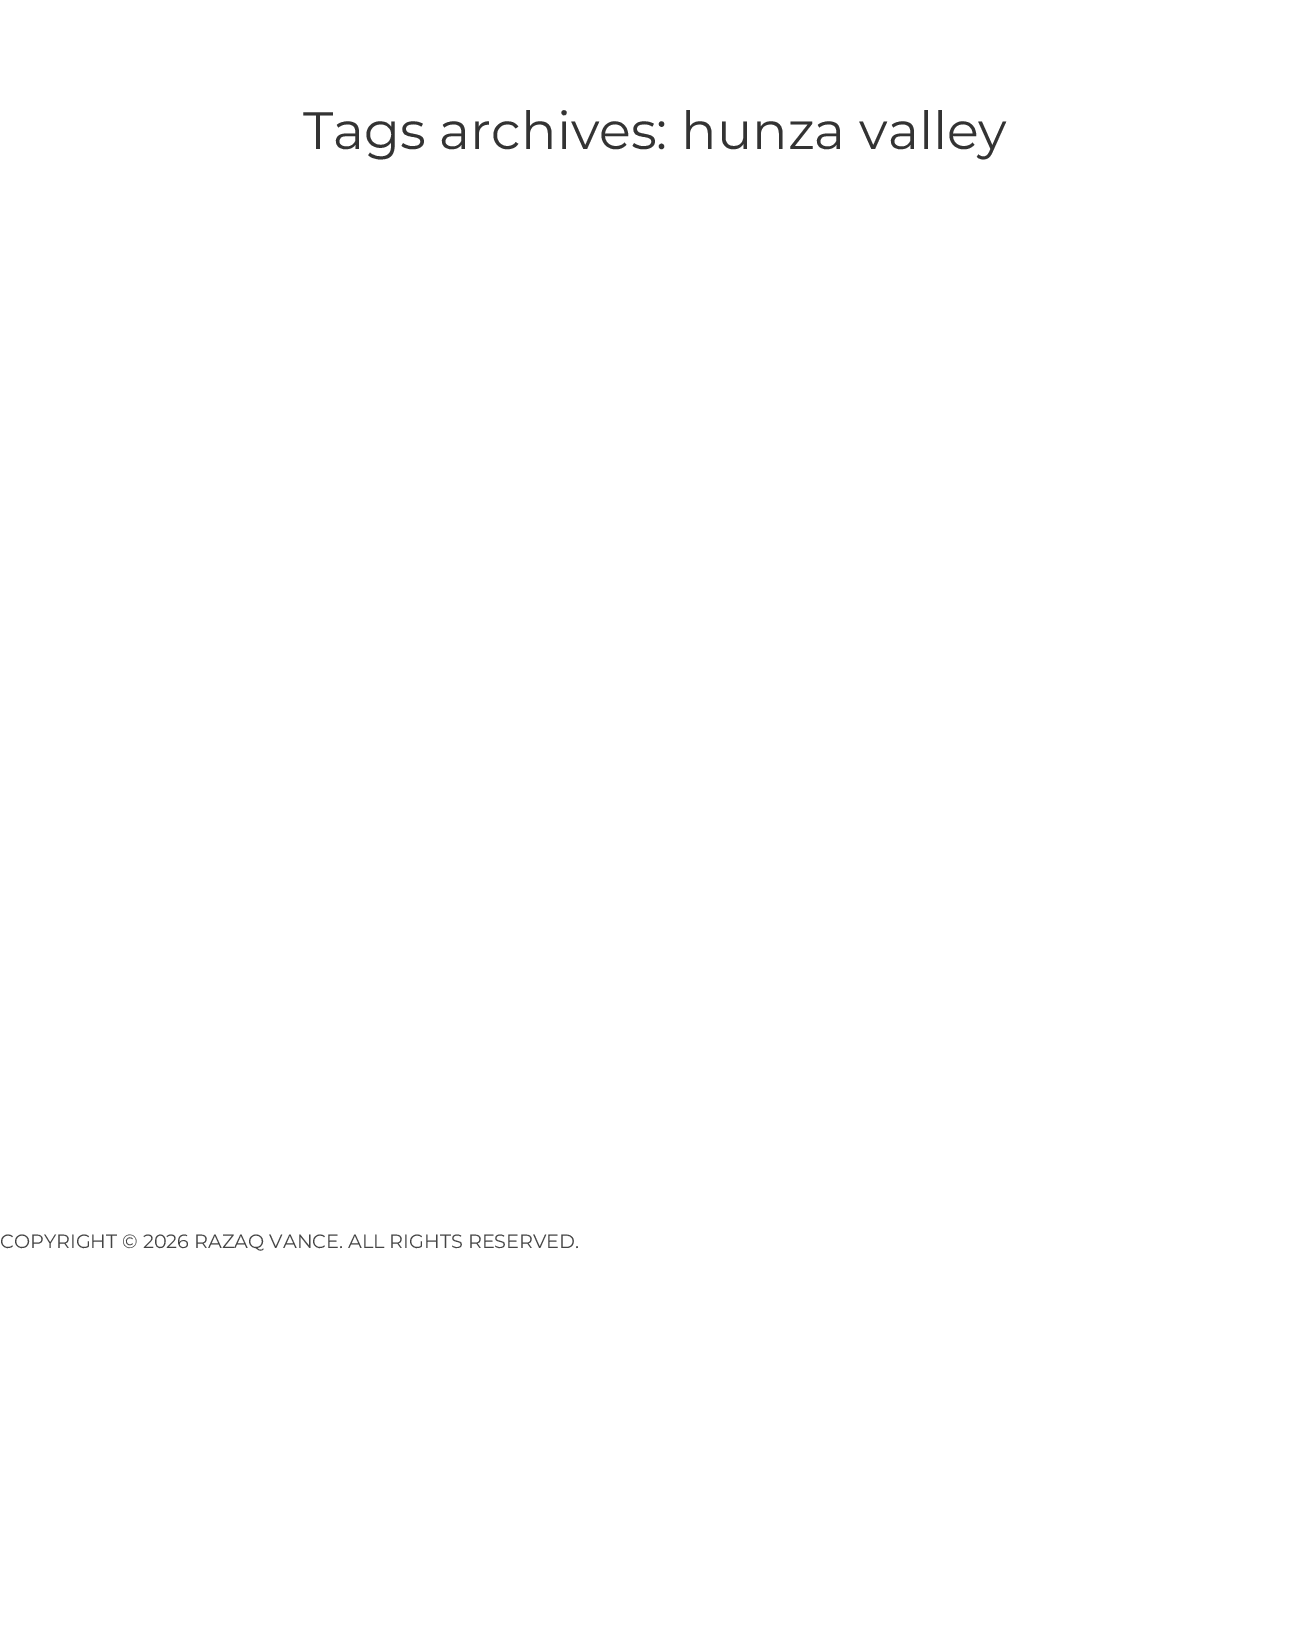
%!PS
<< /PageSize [1308 1640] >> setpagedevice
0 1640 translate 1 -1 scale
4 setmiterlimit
1 setgray
0 0 1308 1640 rectfill
/Montserrat-Thin [52.5 0 0 -52.5 0 0] selectfont
0.2 setgray
303 149 moveto (Tags archives: hunza valley) show
/Montserrat-Thin [19.25 0 0 -19.25 0 0] selectfont
0.267 setgray
0 1248 moveto (COPYRIGHT © 2026 RAZAQ VANCE. ALL RIGHTS RESERVED.) show
showpage
